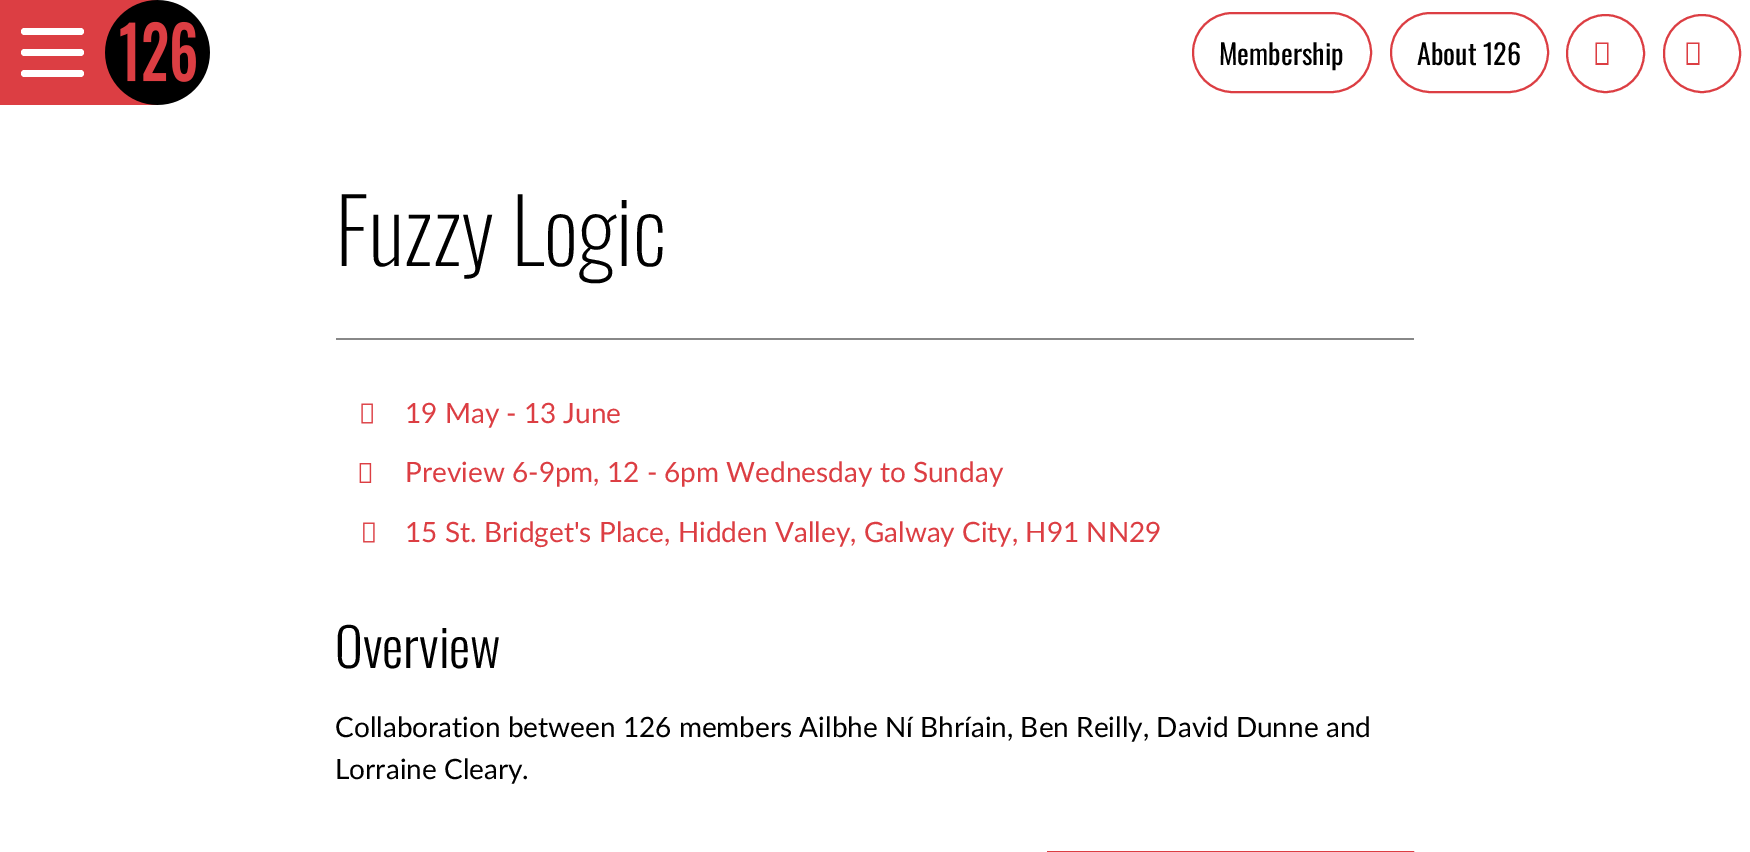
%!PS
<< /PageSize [1750 852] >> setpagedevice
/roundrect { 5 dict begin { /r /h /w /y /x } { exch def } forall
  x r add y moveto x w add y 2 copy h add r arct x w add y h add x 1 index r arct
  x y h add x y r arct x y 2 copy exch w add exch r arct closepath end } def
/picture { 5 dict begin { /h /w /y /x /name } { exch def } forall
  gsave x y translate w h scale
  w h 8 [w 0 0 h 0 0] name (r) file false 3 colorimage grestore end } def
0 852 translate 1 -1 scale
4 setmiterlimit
1 setgray
0 0 1750 852 rectfill
0.863 0.243 0.263 setrgbcolor
0 0 105 105 rectfill
1 setgray
21 28 63 7 3.5 roundrect fill
21 49 63 7 3.5 roundrect fill
21 70 63 7 3.5 roundrect fill
(img1.rgb) 105 0 105 105 picture
0.863 0.243 0.263 setrgbcolor
2 setlinewidth
1193 13 178 79 39.5 roundrect stroke
/Oswald-Regular [28 0 0 -28 0 0] selectfont
0 setgray
1219 65 moveto (Membership) show
0.863 0.243 0.263 setrgbcolor
1391 13 157 79 39.5 roundrect stroke
0 setgray
1417 65 moveto (About 126) show
0.863 0.243 0.263 setrgbcolor
newpath 1605.5 53.5 38.5 0 360 arc closepath stroke
newpath 1595.5 65 moveto 1595.5 42.5 lineto 1608.5 42.5 lineto 1608.5 65 lineto closepath 1597 63 moveto 1607 63 lineto 1607 44 lineto 1597 44 lineto closepath fill
1664 15 76 77 38 roundrect stroke
newpath 1686.5 65 moveto 1686.5 42.5 lineto 1699.5 42.5 lineto 1699.5 65 lineto closepath 1688 63 moveto 1698 63 lineto 1698 44 lineto 1688 44 lineto closepath fill
/Oswald-ExtraLight [88.5 0 0 -88.5 0 0] selectfont
0 setgray
335 266 moveto (Fuzzy Logic) show
0.533 setgray
336 338 1078 2 rectfill
(img2.rgb) 361 403 12 21 picture
/Lato-Regular [28 0 0 -28 0 0] selectfont
0.863 0.243 0.263 setrgbcolor
405 423 moveto (19 May - 13 June) show
(img3.rgb) 359 463 13 20 picture
405 482 moveto (Preview 6-9pm, 12 - 6pm Wednesday to Sunday) show
(img4.rgb) 363 522 12 21 picture
405 542 moveto (15 St. Bridget's Place, Hidden Valley, Galway City, H91 NN29) show
/Oswald-Light [53 0 0 -53 0 0] selectfont
0 setgray
335 668 moveto (Overview) show
/Lato-Regular [28 0 0 -28 0 0] selectfont
335 737 moveto (Collaboration between 126 members Ailbhe Ní Bhríain, Ben Reilly, David Dunne and) show
335 779 moveto (Lorraine Cleary.) show
0.863 0.243 0.263 setrgbcolor
1048 852 365 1 rectstroke
showpage
